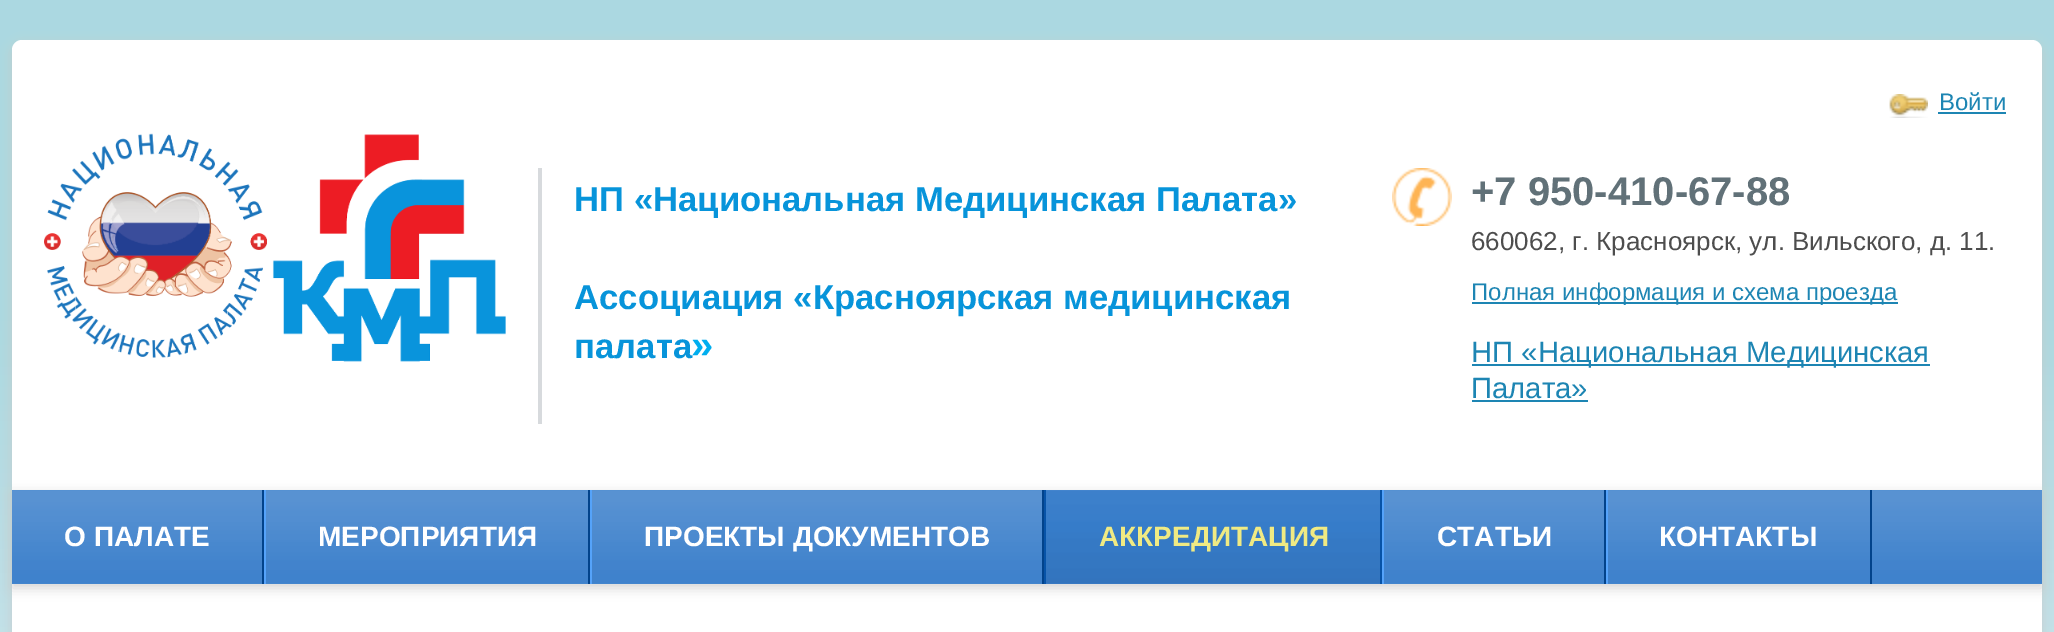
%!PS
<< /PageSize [2054 632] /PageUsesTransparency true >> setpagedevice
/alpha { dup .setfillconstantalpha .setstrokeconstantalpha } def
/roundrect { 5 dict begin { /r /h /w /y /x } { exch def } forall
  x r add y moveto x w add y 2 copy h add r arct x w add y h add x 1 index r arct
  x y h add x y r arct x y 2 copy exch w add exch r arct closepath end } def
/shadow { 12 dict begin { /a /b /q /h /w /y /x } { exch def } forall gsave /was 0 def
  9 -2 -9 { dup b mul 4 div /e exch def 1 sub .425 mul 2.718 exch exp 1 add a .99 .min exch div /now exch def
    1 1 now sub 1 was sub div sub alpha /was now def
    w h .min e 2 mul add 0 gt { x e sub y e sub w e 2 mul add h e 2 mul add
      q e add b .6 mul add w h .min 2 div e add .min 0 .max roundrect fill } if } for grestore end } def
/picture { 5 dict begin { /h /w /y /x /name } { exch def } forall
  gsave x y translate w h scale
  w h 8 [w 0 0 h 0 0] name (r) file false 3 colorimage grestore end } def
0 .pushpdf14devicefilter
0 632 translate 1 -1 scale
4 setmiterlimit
1 setgray
0 0 2054 632 rectfill
(img1.rgb) 0 0 2054 632 picture
0.788 setgray
12 44 2030 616 10 6 0.8 shadow
1 setgray
12 40 2030 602 10 roundrect fill
(img2.rgb) 1889 94 39 24 picture
/LiberationSans-Regular [24 0 0 -24 0 0] selectfont
0.114 0.522 0.702 setrgbcolor
1939 110 moveto (Войти) show
1938 112 68 2 rectfill
(img3.rgb) 44 133 462 229 picture
0.843 0.855 0.867 setrgbcolor
538 168 4 256 rectfill
/LiberationSans-Bold [34.7 0 0 -34.7 0 0] selectfont
0.027 0.58 0.855 setrgbcolor
574 211 moveto (НП «Национальная Медицинская Палата») show
574 309 moveto (Ассоциация «Красноярская медицинская) show
574 358 moveto (палата) show
/LiberationSans-Bold [40 0 0 -40 0 0] selectfont
0 0.682 0.937 setrgbcolor
691 358 moveto (») show
(img4.rgb) 1392 168 60 58 picture
0.38 0.443 0.471 setrgbcolor
1471 205 moveto (+7 950-410-67-88) show
/LiberationSans-Regular [26 0 0 -26 0 0] selectfont
0.302 setgray
1471 250 moveto (660062, г. Красноярск, ул. Вильского, д. 11.) show
0.114 0.522 0.702 setrgbcolor
1472 302 426 2 rectfill
/LiberationSans-Regular [24 0 0 -24 0 0] selectfont
1471 300 moveto (Полная информация и схема проезда) show
1472 364 458 2 rectfill
/LiberationSans-Regular [29.3 0 0 -29.3 0 0] selectfont
1471 362 moveto (НП «Национальная Медицинская) show
1471 398 moveto (Палата») show
1472 400 116 2 rectfill
0.788 setgray
12 494 2030 94 0 6 0.8 shadow
(img5.rgb) 12 490 2030 94 picture
0.008 0.263 0.545 setrgbcolor
262 490 2 94 rectfill
/LiberationSans-Bold [28 0 0 -28 0 0] selectfont
1 setgray
64 546 moveto (О ПАЛАТЕ) show
0.008 0.263 0.545 setrgbcolor
588 490 2 94 rectfill
0.333 0.639 0.98 setrgbcolor
264 490 2 94 rectfill
1 setgray
318 546 moveto (МЕРОПРИЯТИЯ) show
0.008 0.263 0.545 setrgbcolor
1042 490 2 94 rectfill
0.333 0.639 0.98 setrgbcolor
590 490 2 94 rectfill
1 setgray
644 546 moveto (ПРОЕКТЫ ДОКУМЕНТОВ) show
(img6.rgb) 1046 490 334 94 picture
0.027 0.325 0.655 setrgbcolor
1380 490 2 94 rectfill
1044 490 2 94 rectfill
0.941 0.918 0.514 setrgbcolor
1099 546 moveto (АККРЕДИТАЦИЯ) show
0.008 0.263 0.545 setrgbcolor
1604 490 2 94 rectfill
0.333 0.639 0.98 setrgbcolor
1382 490 2 94 rectfill
1 setgray
1437 546 moveto (СТАТЬИ) show
0.008 0.263 0.545 setrgbcolor
1870 490 2 94 rectfill
0.333 0.639 0.98 setrgbcolor
1606 490 2 94 rectfill
1 setgray
1659 546 moveto (КОНТАКТЫ) show
.poppdf14devicefilter showpage
